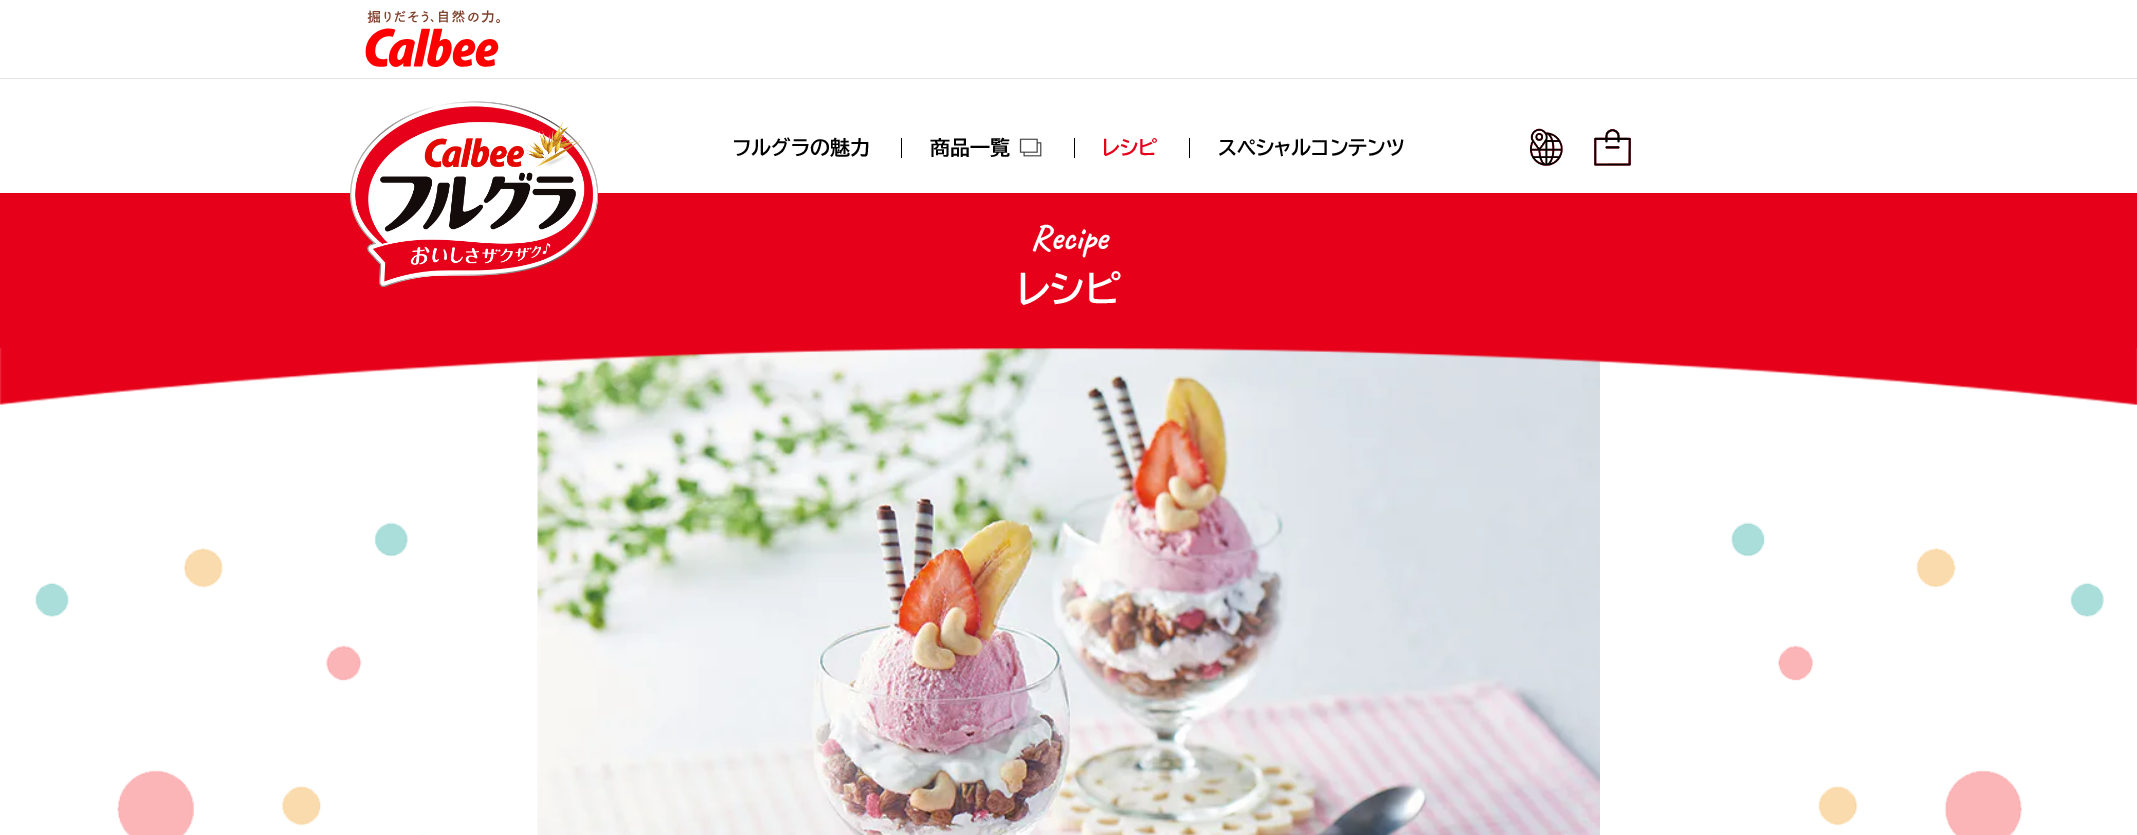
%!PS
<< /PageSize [2137 835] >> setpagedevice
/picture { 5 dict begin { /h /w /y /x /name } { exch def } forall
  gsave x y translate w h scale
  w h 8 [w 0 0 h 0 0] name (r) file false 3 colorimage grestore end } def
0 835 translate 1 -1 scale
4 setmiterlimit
1 setgray
0 0 2137 835 rectfill
(img1.rgb) 365 10 135 57 picture
0.898 setgray
0 78 2137 1 rectfill
0.902 0 0.098 setrgbcolor
0 193 2137 155 rectfill
(img2.rgb) 350 101 248 186 picture
/BIZUDPGothic-Bold [20 0 0 -20 0 0] selectfont
0 setgray
733 155 moveto (フルグラの魅力) show
901 138 1 20 rectfill
930 155 moveto (商品一覧) show
(img3.rgb) 1019 138 23 19 picture
1074 138 1 20 rectfill
0.902 0 0.102 setrgbcolor
1102 155 moveto (レシピ) show
0 setgray
1189 138 1 20 rectfill
1218 155 moveto (スペシャルコンテンツ) show
(img4.rgb) 1530 128 33 38 picture
(img5.rgb) 1530 128 33 38 picture
(img6.rgb) 1594 129 37 37 picture
(img7.rgb) 1594 129 37 37 picture
/Caveat-Bold [36 0 0 -36 0 0] selectfont
1 setgray
1030 249 moveto (Recipe) show
/BIZUDPGothic-Bold [37.5 0 0 -37.5 0 0] selectfont
1017 303 moveto (レシピ) show
(img9.rgb) 35 522 2069 313 picture
(img10.rgb) 537 348 1063 487 picture
(img8.rgb) 0 348 2137 57 picture
showpage
